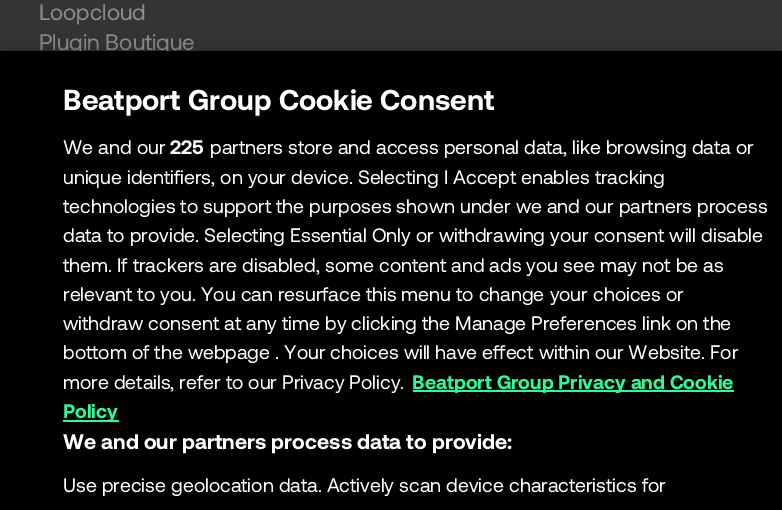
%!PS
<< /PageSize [782 510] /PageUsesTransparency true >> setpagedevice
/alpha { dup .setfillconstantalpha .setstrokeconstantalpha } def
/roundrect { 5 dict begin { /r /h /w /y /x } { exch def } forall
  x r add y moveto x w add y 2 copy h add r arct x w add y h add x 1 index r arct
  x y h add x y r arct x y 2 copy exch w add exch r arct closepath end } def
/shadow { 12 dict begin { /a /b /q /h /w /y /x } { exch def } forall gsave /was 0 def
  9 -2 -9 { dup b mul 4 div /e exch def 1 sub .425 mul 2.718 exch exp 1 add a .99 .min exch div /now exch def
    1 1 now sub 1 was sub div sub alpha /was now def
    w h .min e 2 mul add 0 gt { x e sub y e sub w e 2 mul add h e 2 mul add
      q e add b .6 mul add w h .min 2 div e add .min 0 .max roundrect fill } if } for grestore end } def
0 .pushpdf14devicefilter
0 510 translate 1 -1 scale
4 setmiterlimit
0.204 setgray
0 0 782 510 rectfill
/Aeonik-Regular [22.5 0 0 -22.5 0 0] selectfont
0.549 setgray
39 20 moveto (Loopcloud) show
39 50 moveto (Plugin Boutique) show
0 setgray
0 51 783 459 0 13.5 0.2 shadow
0 51 782 459 rectfill
/Aeonik-Bold [28.75 0 0 -28.75 0 0] selectfont
1 setgray
63 110 moveto (Beatport Group Cookie Consent) show
/Aeonik-Regular [19.5 0 0 -19.5 0 0] selectfont
63 154 moveto (We and our) show
/Aeonik-Bold [19.5 0 0 -19.5 0 0] selectfont
170 154 moveto (225) show
/Aeonik-Regular [19.5 0 0 -19.5 0 0] selectfont
210 154 moveto (partners store and access personal data, like browsing data or) show
63 184 moveto (unique identifiers, on your device. Selecting I Accept enables tracking) show
63 213 moveto (technologies to support the purposes shown under we and our partners process) show
63 242 moveto (data to provide. Selecting Essential Only or withdrawing your consent will disable) show
63 272 moveto (them. If trackers are disabled, some content and ads you see may not be as) show
63 301 moveto (relevant to you. You can resurface this menu to change your choices or) show
63 330 moveto (withdraw consent at any time by clicking the Manage Preferences link on the) show
63 359 moveto (bottom of the webpage . Your choices will have effect within our Website. For) show
63 389 moveto (more details, refer to our Privacy Policy.) show
0.153 1 0.612 setrgbcolor
413 390 321 2 rectfill
/Aeonik-Bold [19.5 0 0 -19.5 0 0] selectfont
412 389 moveto (Beatport Group Privacy and Cookie) show
63 420 56 2 rectfill
63 418 moveto (Policy) show
/Aeonik-Bold [21.1 0 0 -21.1 0 0] selectfont
1 setgray
63 449 moveto (We and our partners process data to provide:) show
/Aeonik-Regular [19.5 0 0 -19.5 0 0] selectfont
63 492 moveto (Use precise geolocation data. Actively scan device characteristics for) show
.poppdf14devicefilter showpage
